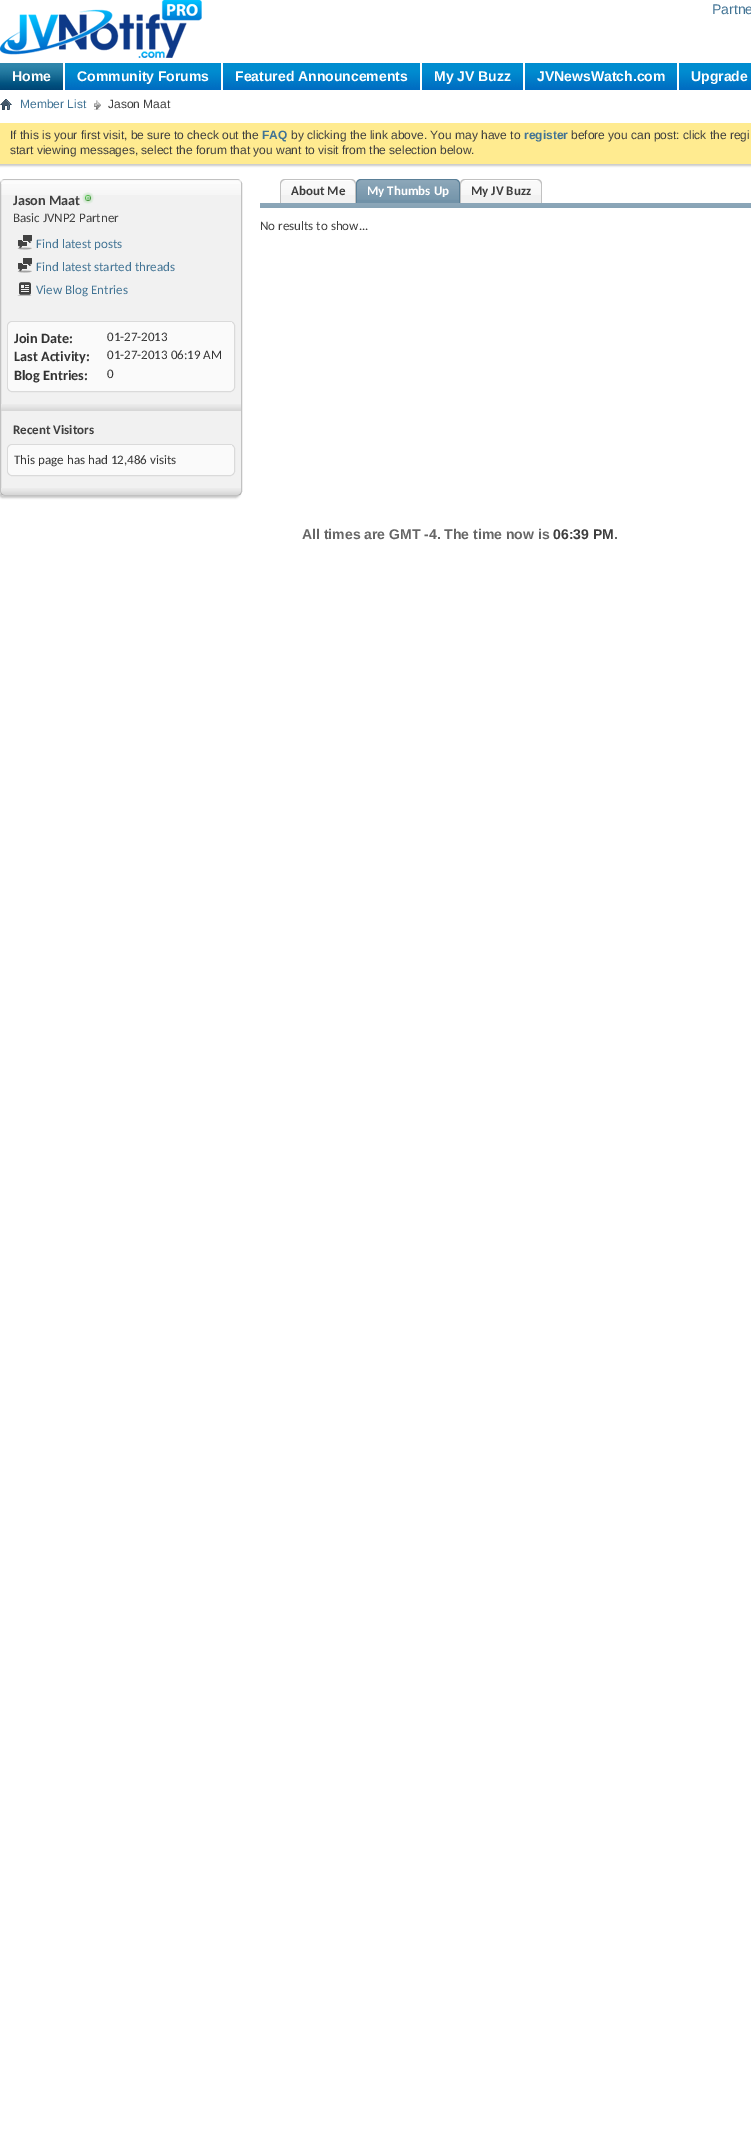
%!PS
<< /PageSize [751 2147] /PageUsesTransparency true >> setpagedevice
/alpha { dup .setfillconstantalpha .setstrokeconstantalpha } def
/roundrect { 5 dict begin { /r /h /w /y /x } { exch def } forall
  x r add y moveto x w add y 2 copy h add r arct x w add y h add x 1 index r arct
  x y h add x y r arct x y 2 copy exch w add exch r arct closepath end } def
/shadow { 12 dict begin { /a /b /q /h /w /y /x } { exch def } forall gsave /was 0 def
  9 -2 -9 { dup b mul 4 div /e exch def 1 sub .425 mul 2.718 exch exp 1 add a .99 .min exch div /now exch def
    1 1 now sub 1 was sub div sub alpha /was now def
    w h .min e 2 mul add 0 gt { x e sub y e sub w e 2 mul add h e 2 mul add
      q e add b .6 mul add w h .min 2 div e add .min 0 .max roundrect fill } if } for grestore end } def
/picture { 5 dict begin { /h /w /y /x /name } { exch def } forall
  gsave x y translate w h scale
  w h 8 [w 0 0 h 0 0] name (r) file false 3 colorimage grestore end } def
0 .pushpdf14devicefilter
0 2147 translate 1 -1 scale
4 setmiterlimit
1 setgray
0 0 751 2147 rectfill
(img1.rgb) 0 0 202 58 picture
/LiberationSans-Regular [14 0 0 -14 0 0] selectfont
0.255 0.451 0.58 setrgbcolor
712 14 moveto (Partne) show
(img2.rgb) 65 63 686 27 picture
(img3.rgb) 0 63 63 27 picture
/LiberationSans-Bold [14 0 0 -14 0 0] selectfont
1 setgray
12 81 moveto (Home) show
221 63 2 31 rectfill
77 81 moveto (Community Forums) show
420 63 2 31 rectfill
235 81 moveto (Featured Announcements) show
523 63 2 31 rectfill
434 81 moveto (My JV Buzz) show
677 63 2 31 rectfill
537 81 moveto (JVNewsWatch.com) show
691 81 moveto (Upgrade) show
(img4.rgb) 0 99 12 11 picture
(img5.rgb) 94 100 7 10 picture
/LiberationSans-Regular [12 0 0 -12 0 0] selectfont
0.255 0.451 0.58 setrgbcolor
20 108 moveto (Member List) show
0.243 setgray
108 108 moveto (Jason Maat) show
0.784 setgray
-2 125 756 41 0 1 1 shadow
1 0.922 0.565 setrgbcolor
0 123 751 41 rectfill
0.243 setgray
10 139 moveto (If this is your first visit, be sure to check out the) show
/LiberationSans-Bold [12 0 0 -12 0 0] selectfont
0.255 0.451 0.58 setrgbcolor
262 139 moveto (FAQ) show
/LiberationSans-Regular [12 0 0 -12 0 0] selectfont
0.243 setgray
291 139 moveto (by clicking the link above. You may have to) show
/LiberationSans-Bold [12 0 0 -12 0 0] selectfont
0.255 0.451 0.58 setrgbcolor
524 139 moveto (register) show
/LiberationSans-Regular [12 0 0 -12 0 0] selectfont
0.243 setgray
571 139 moveto (before you can post: click the regi) show
10 154 moveto (start viewing messages, select the forum that you want to visit from the selection below.) show
0.784 setgray
-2 181 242 317 5 1 1 shadow
0.945 setgray
0 179 242 317 5 roundrect fill
(img6.rgb) 0 180 242 15 picture
0.757 setgray
0.5 179.5 241 316 4.5 roundrect stroke
0.58 alpha
1 setgray
1 180 240 4 rectfill
/Carlito-Bold [14.25 0 0 -14.25 0 0] selectfont
1 alpha
0.243 setgray
13 205 moveto (Jason Maat) show
(img7.rgb) 82 192 12 12 picture
/Carlito-Regular [13 0 0 -13 0 0] selectfont
13 222 moveto (Basic JVNP2 Partner) show
(img8.rgb) 17 235 15 15 picture
0.255 0.451 0.58 setrgbcolor
36 248 moveto (Find latest posts) show
(img8.rgb) 17 258 15 15 picture
36 271 moveto (Find latest started threads) show
(img9.rgb) 17 282 15 14 picture
36 294 moveto (View Blog Entries) show
0.855 setgray
7.5 321.5 227 70 4.5 roundrect stroke
0.98 setgray
8 322 226 69 5 roundrect fill
231 322 1 1 rectfill
/Carlito-Bold [14.25 0 0 -14.25 0 0] selectfont
0.2 setgray
14 343 moveto (Join Date:) show
/Carlito-Regular [13 0 0 -13 0 0] selectfont
107 341 moveto (01-27-2013) show
/Carlito-Bold [14.25 0 0 -14.25 0 0] selectfont
14 361 moveto (Last Activity:) show
/Carlito-Regular [13 0 0 -13 0 0] selectfont
107 359 moveto (01-27-2013 06:19 AM) show
/Carlito-Bold [14.25 0 0 -14.25 0 0] selectfont
14 380 moveto (Blog Entries:) show
/Carlito-Regular [13 0 0 -13 0 0] selectfont
107 378 moveto (0) show
(img10.rgb) 1 404 240 7 picture
/Carlito-Bold [13 0 0 -13 0 0] selectfont
0.243 setgray
13 434 moveto (Recent Visitors) show
0.855 setgray
7.5 444.5 227 31 4.5 roundrect stroke
0.98 setgray
8 445 226 30 5 roundrect fill
231 445 1 1 rectfill
/Carlito-Regular [13 0 0 -13 0 0] selectfont
0.2 setgray
14 464 moveto (This page has had 12,486 visits) show
(img11.rgb) 1 488 240 7 picture
0.945 setgray
newpath 285 180 moveto 351 180 lineto 353 180 355 182 355 184 curveto 355 203 lineto 281 203 lineto 281 184 lineto 281 182 283 180 285 180 curveto closepath fill
(img12.rgb) 281 180 74 15 picture
0.757 setgray
newpath 285 179 moveto 351 179 lineto 354 179 356 181 356 184 curveto 356 203 lineto 280 203 lineto 280 184 lineto 280 181 282 179 285 179 curveto closepath 285 180 moveto 351 180 lineto 353 180 355 182 355 184 curveto 355 203 lineto 281 203 lineto 281 184 lineto 281 182 283 180 285 180 curveto closepath eofill
/Carlito-Bold [13 0 0 -13 0 0] selectfont
0.243 setgray
291 195 moveto (About Me) show
0.443 0.573 0.659 setrgbcolor
newpath 361 180 moveto 455 180 lineto 457 180 459 182 459 184 curveto 459 203 lineto 357 203 lineto 357 184 lineto 357 182 359 180 361 180 curveto closepath fill
(img13.rgb) 357 180 102 20 picture
0.353 0.498 0.592 setrgbcolor
newpath 361 179 moveto 455 179 lineto 458 179 460 181 460 184 curveto 460 203 lineto 356 203 lineto 356 184 lineto 356 181 358 179 361 179 curveto closepath 361 180 moveto 455 180 lineto 457 180 459 182 459 184 curveto 459 203 lineto 357 203 lineto 357 184 lineto 357 182 359 180 361 180 curveto closepath eofill
1 setgray
367 195 moveto (My Thumbs Up) show
0.945 setgray
newpath 465 180 moveto 537 180 lineto 539 180 541 182 541 184 curveto 541 203 lineto 461 203 lineto 461 184 lineto 461 182 463 180 465 180 curveto closepath fill
(img14.rgb) 461 180 80 15 picture
0.757 setgray
newpath 465 179 moveto 537 179 lineto 540 179 542 181 542 184 curveto 542 203 lineto 460 203 lineto 460 184 lineto 460 181 462 179 465 179 curveto closepath 465 180 moveto 537 180 lineto 539 180 541 182 541 184 curveto 541 203 lineto 461 203 lineto 461 184 lineto 461 182 463 180 465 180 curveto closepath eofill
0.243 setgray
471 195 moveto (My JV Buzz) show
0.443 0.573 0.659 setrgbcolor
260 203 491 5 rectfill
(img15.rgb) 260 203 491 5 picture
/Carlito-Regular [13 0 0 -13 0 0] selectfont
0.243 setgray
260 230 moveto (No results to show...) show
/LiberationSans-Bold [14 0 0 -14 0 0] selectfont
0.4 setgray
302 539 moveto (All times are GMT -4. The time now is) show
0.243 setgray
553 539 moveto (06:39 PM) show
0.4 setgray
614 539 moveto (.) show
.poppdf14devicefilter showpage
